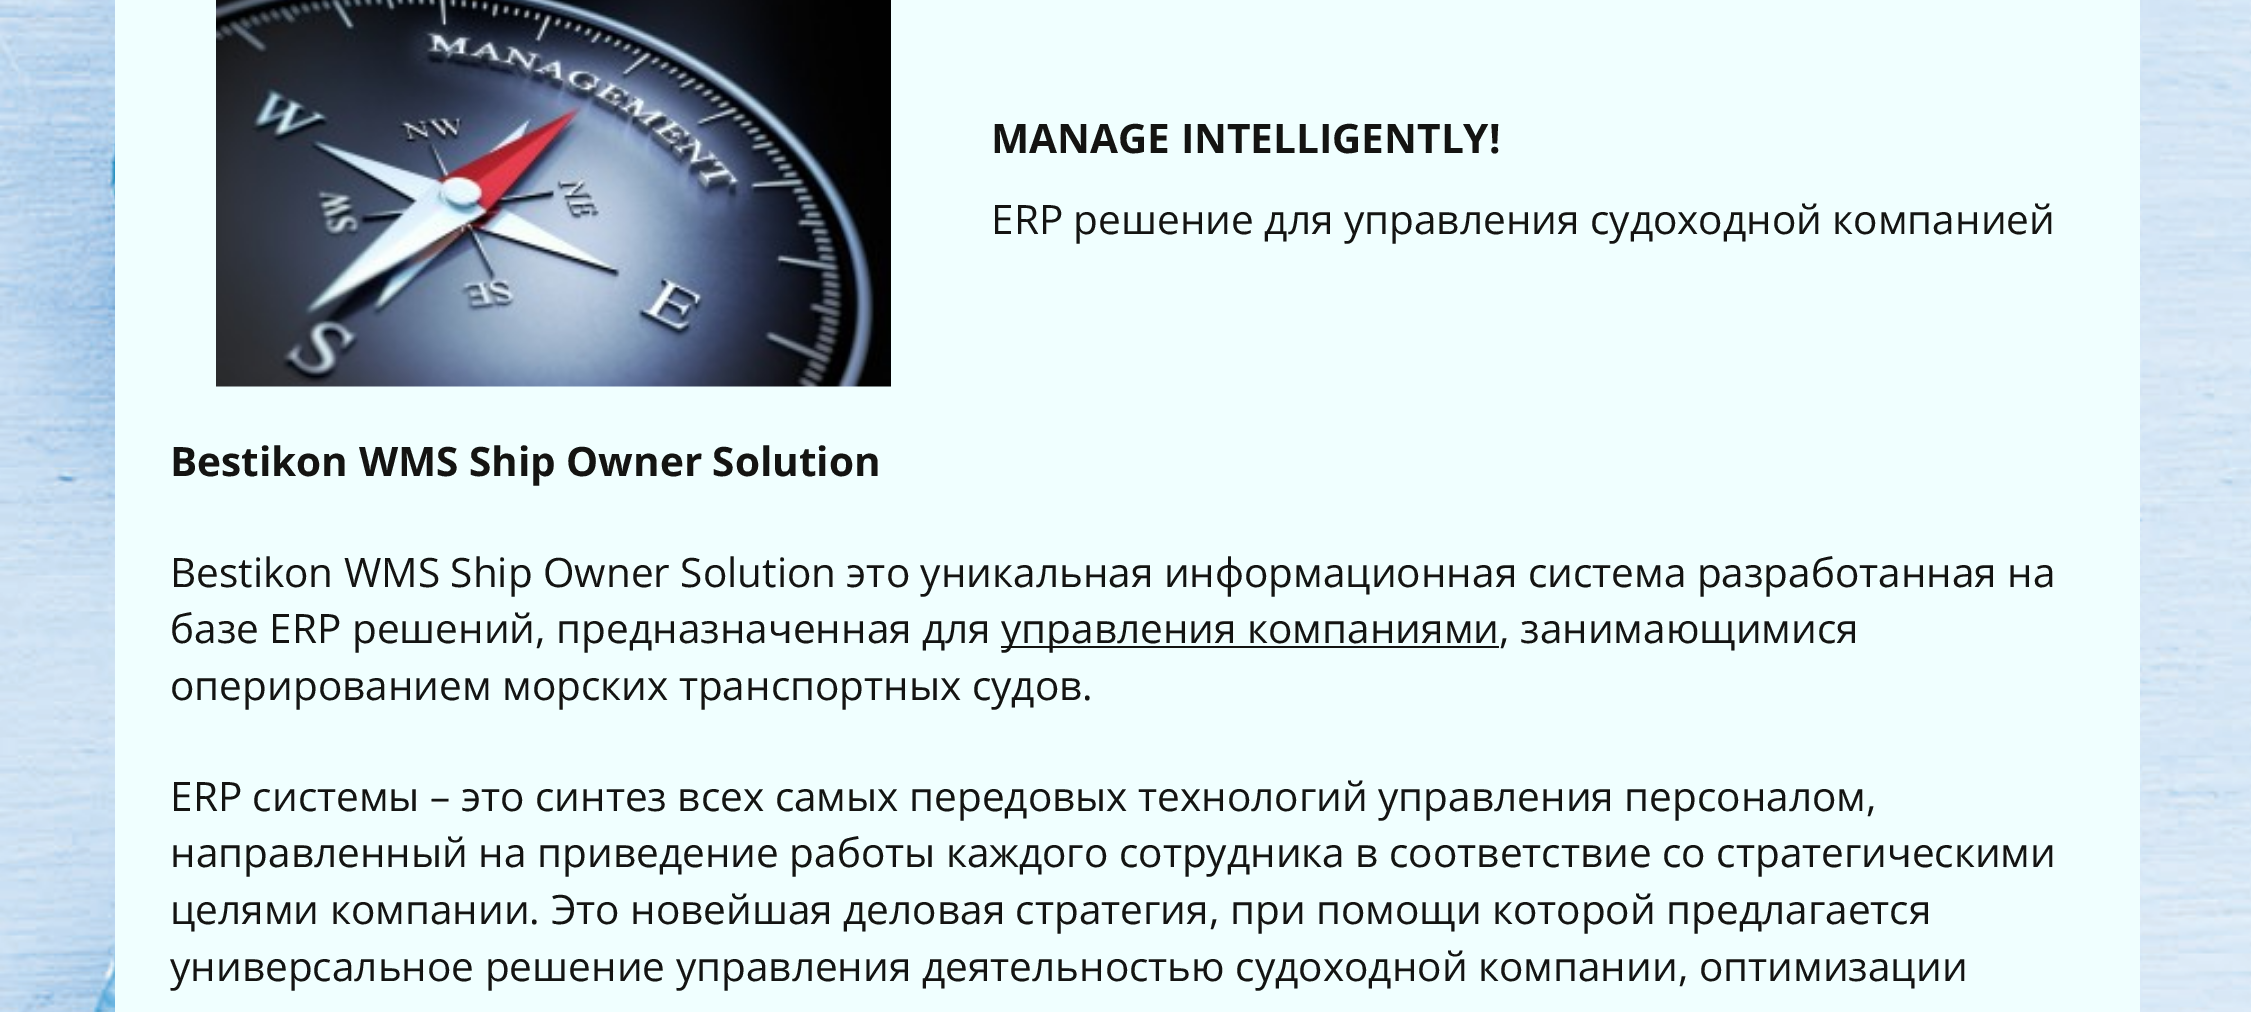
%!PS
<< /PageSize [2251 1012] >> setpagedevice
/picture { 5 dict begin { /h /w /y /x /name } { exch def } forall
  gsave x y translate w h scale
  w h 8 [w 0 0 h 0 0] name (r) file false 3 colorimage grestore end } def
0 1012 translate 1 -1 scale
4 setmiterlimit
1 setgray
0 0 2251 1012 rectfill
(img1.rgb) 0 0 2251 1012 picture
0.941 1 1 setrgbcolor
115 0 2025 1012 rectfill
(img2.rgb) 216 0 675 387 picture
/OpenSans-Bold [40.5 0 0 -40.5 0 0] selectfont
0.078 0.078 0.071 setrgbcolor
991 153 moveto (MANAGE INTELLIGENTLY!) show
/OpenSans-Regular [40.5 0 0 -40.5 0 0] selectfont
991 234 moveto (ERP решение для управления судоходной компанией) show
/OpenSans-Bold [40.5 0 0 -40.5 0 0] selectfont
170 476 moveto (Bestikon WMS Ship Owner Solution) show
/OpenSans-Regular [40.5 0 0 -40.5 0 0] selectfont
170 587 moveto (Bestikon WMS Ship Owner Solution это уникальная информационная система разработанная на) show
170 643 moveto (базе ERP решений, предназначенная для) show
1001 646 498 2 rectfill
1001 643 moveto (управления компаниями, занимающимися) show
170 700 moveto (оперированием морских транспортных судов.) show
170 811 moveto (ERP системы – это синтез всех самых передовых технологий управления персоналом,) show
170 867 moveto (направленный на приведение работы каждого сотрудника в соответствие со стратегическими) show
170 924 moveto (целями компании. Это новейшая деловая стратегия, при помощи которой предлагается) show
170 981 moveto (универсальное решение управления деятельностью судоходной компании, оптимизации) show
showpage
